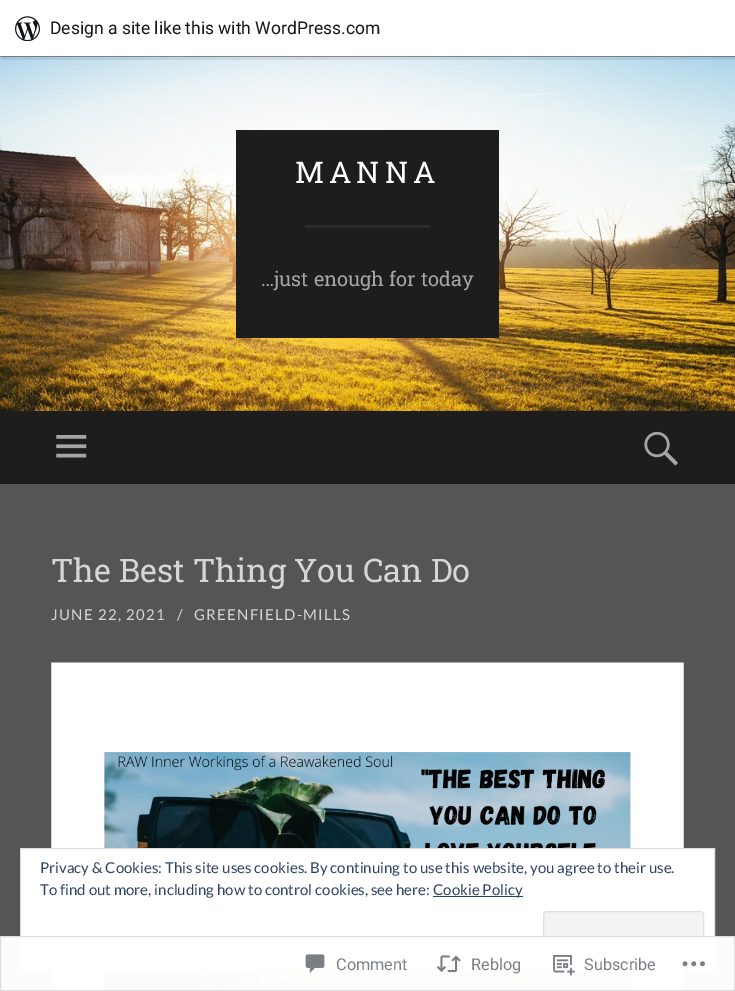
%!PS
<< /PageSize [735 991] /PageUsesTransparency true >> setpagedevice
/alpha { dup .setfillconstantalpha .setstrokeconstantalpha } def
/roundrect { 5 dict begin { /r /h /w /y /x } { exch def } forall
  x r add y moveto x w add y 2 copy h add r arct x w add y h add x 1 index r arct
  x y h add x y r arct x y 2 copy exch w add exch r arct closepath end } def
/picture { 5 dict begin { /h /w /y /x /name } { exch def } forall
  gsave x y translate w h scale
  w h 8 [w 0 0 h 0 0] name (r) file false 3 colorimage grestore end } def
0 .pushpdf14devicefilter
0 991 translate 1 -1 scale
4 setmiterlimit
0.333 setgray
0 0 735 991 rectfill
0.149 setgray
0 56 735 1 rectfill
(img2.rgb) 0 56 735 355 picture
0.08 alpha
0 setgray
newpath 1 56 moveto 1 60 lineto 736 60 lineto 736 4 lineto 735 4 lineto 735 56 lineto closepath fill
1 alpha
1 setgray
0 0 735 56 rectfill
(img1.rgb) 15 16 25 25 picture
/Roboto-Regular [17.5 0 0 -17.5 0 0] selectfont
0.09 setgray
50 34 moveto (Design a site like this with WordPress.com) show
0.114 setgray
236 130 263 208 rectfill
/RobotoSlab-Regular [30 0 0 -30 0 0] selectfont
1 setgray
295 183 moveto 5 0 (MANNA) ashow
0.169 setgray
305 225 125 3 rectfill
/RobotoSlab-Regular [20 0 0 -20 0 0] selectfont
0.647 setgray
261 286 moveto (…just enough for today) show
0.114 setgray
0 411 735 73 rectfill
(img3.rgb) 56 435 31 23 picture
(img4.rgb) 644 431 34 35 picture
/RobotoSlab-Regular [32.5 0 0 -32.5 0 0] selectfont
0.839 setgray
51 582 moveto (The Best Thing You Can Do) show
/Lato-Regular [15 0 0 -15 0 0] selectfont
51 620 moveto 1.25 0 (JUNE 22, 2021) ashow
0.867 setgray
177 620 moveto 1.25 0 (/) ashow
0.839 setgray
194 620 moveto 1.25 0 (GREENFIELD-MILLS) ashow
(img5.rgb) 51 662 633 329 picture
1 setgray
newpath 20.5 848.5 moveto 714.5 848.5 lineto 714.5 970.5 lineto 20.5 970.5 lineto closepath gsave fill grestore
0.871 setgray
stroke
0.18 0.267 0.404 setrgbcolor
40 873 moveto (Privacy & Cookies: This site uses cookies. By continuing to use this website, you agree to their use.) show
40 895 moveto (To find out more, including how to control cookies, see here:) show
433 896 90 1 rectfill
433 895 moveto (Cookie Policy) show
0.953 setgray
543.5 911.5 160 48 3.5 roundrect gsave fill grestore
0.871 setgray
stroke
0.98 alpha
1 setgray
0 936 735 55 rectfill
0.863 0.863 0.871 setrgbcolor
0.5 936.5 734 54 rectstroke
1 alpha
(img6.rgb) 305 954 20 19 picture
/Roboto-Regular [16.25 0 0 -16.25 0 0] selectfont
0.482 0.498 0.518 setrgbcolor
336 970 moveto (Comment) show
(img7.rgb) 436 955 25 18 picture
471 970 moveto (Reblog) show
(img8.rgb) 553 955 22 21 picture
584 970 moveto (Subscribe) show
(img9.rgb) 682 961 23 6 picture
.poppdf14devicefilter showpage
